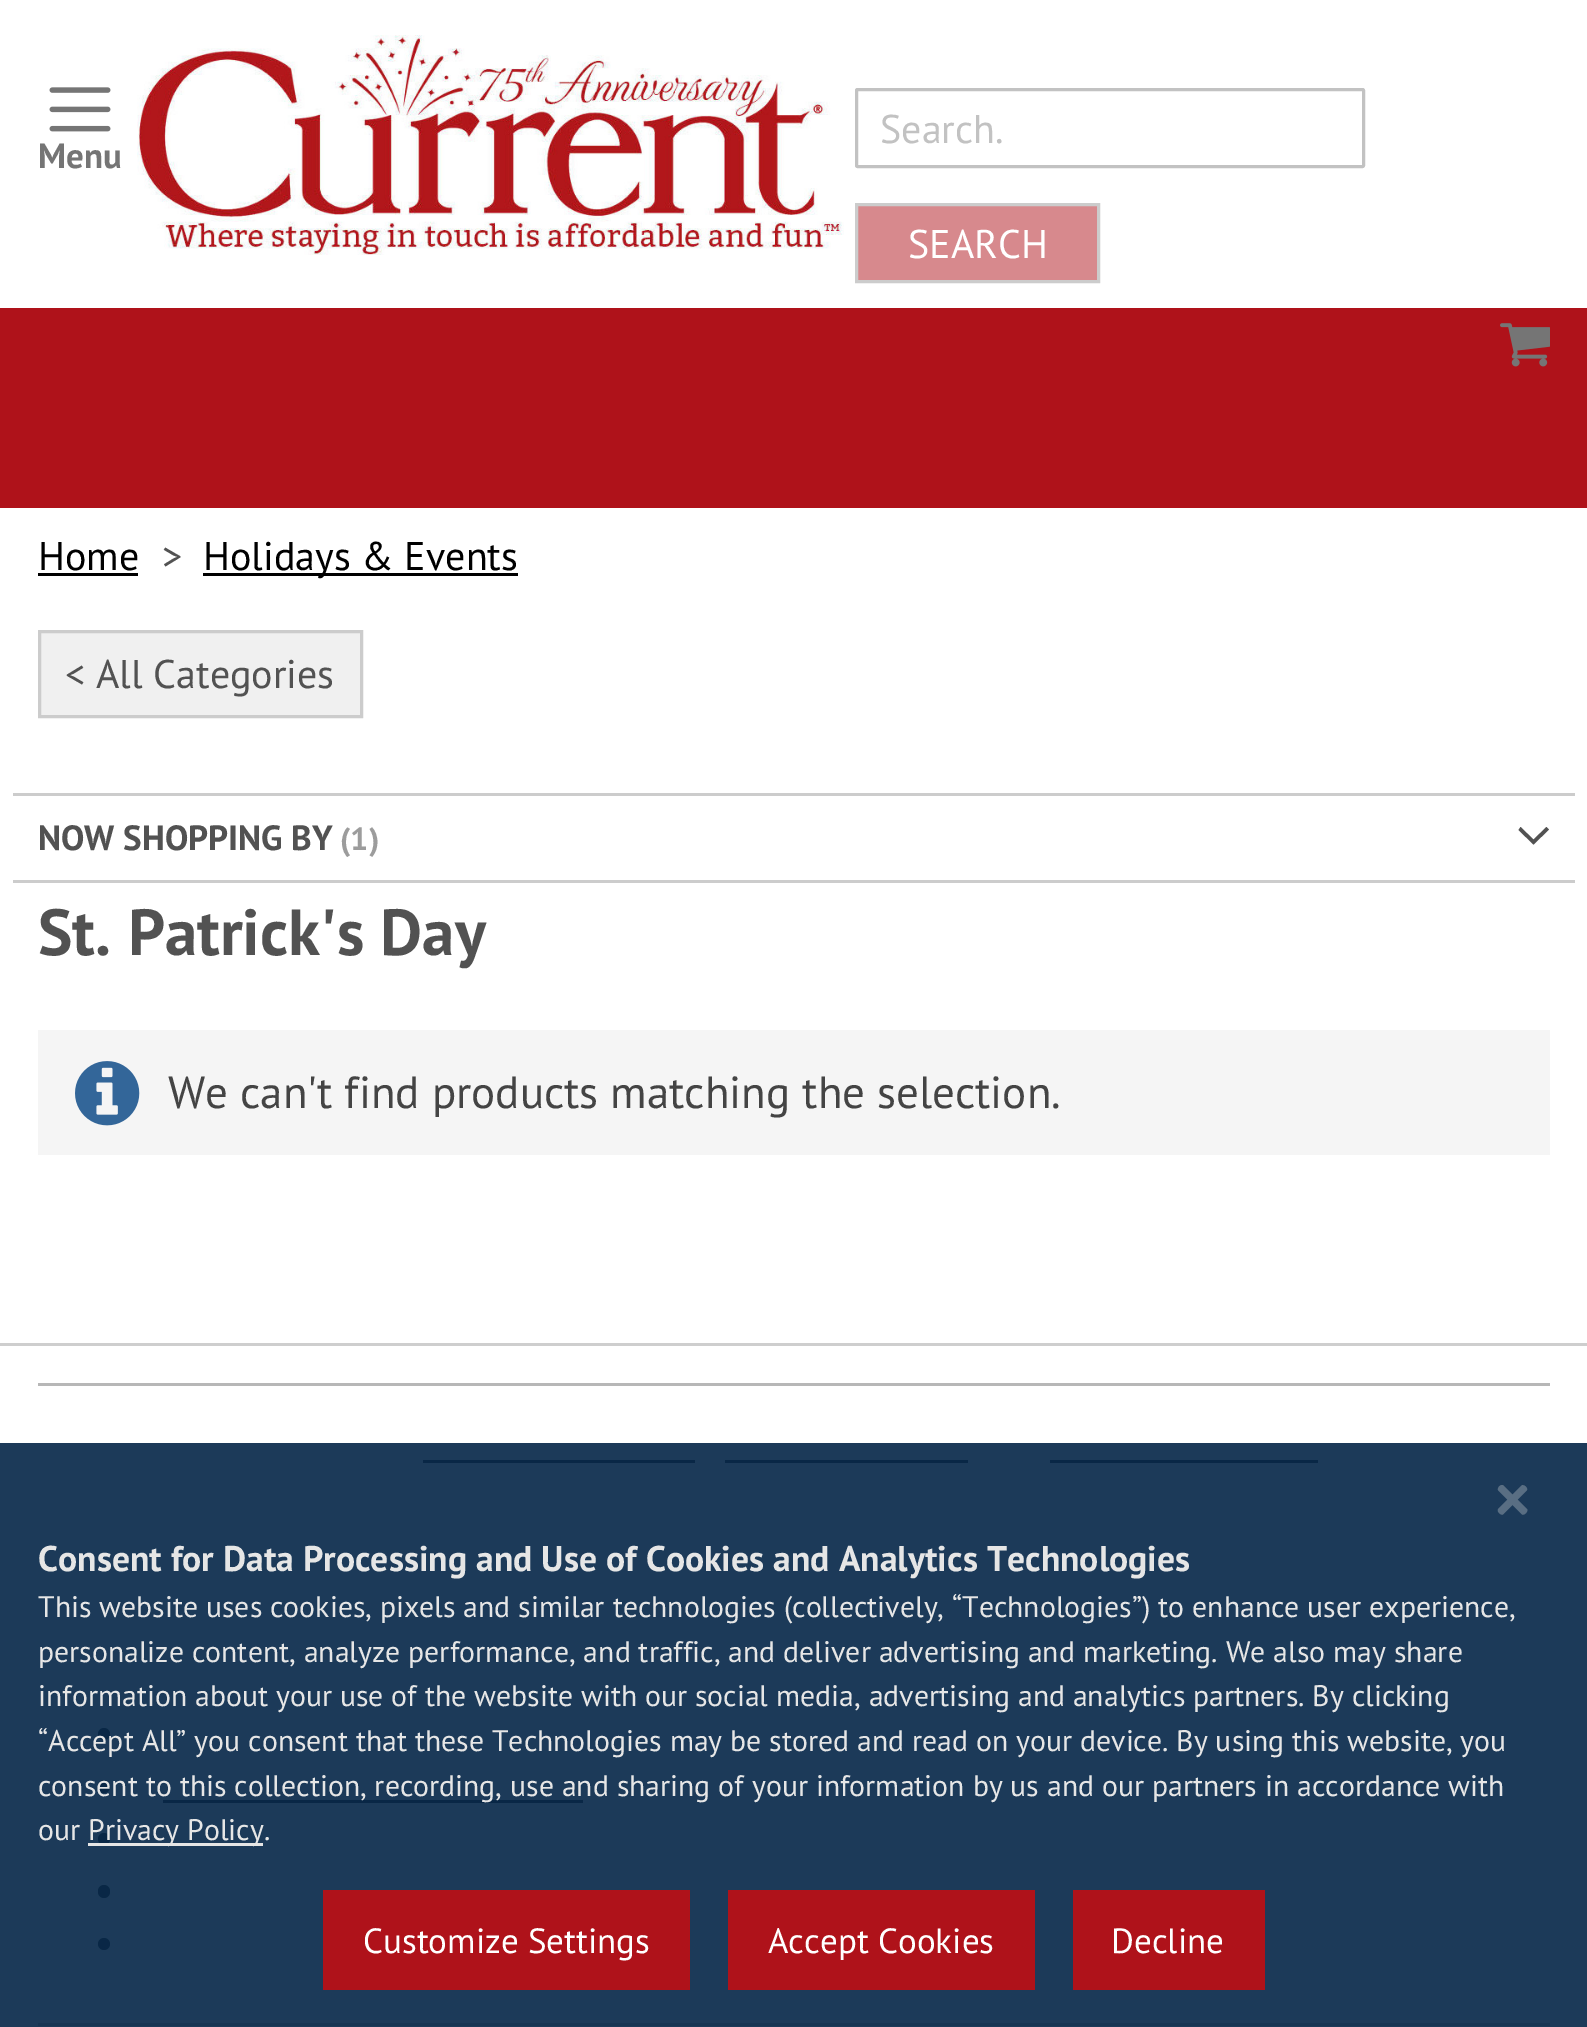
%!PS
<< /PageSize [1587 2027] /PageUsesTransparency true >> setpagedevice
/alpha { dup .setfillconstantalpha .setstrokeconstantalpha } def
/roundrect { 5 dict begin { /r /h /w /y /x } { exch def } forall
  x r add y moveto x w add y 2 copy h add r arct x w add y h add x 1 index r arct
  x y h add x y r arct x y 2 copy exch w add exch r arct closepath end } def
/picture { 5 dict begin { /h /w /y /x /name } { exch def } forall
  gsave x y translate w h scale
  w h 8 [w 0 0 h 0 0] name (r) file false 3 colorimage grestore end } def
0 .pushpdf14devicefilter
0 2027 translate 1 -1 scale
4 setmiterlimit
1 setgray
0 0 1587 2027 rectfill
(img1.rgb) 49 87 62 45 picture
/PTSans-Bold [35 0 0 -35 0 0] selectfont
0.459 setgray
38 168 moveto (Menu) show
0.686 0.071 0.102 setrgbcolor
0 308 1587 200 rectfill
(img2.rgb) 1500 323 50 44 picture
(img3.rgb) 137 35 707 220 picture
0.761 setgray
3 setlinewidth
856.5 89.5 507 77 1 roundrect stroke
/PTSans-Regular [40 0 0 -40 0 0] selectfont
880 143 moveto (Search.) show
0.843 0.537 0.553 setrgbcolor
newpath 856.5 204.5 moveto 1098.5 204.5 lineto 1098.5 281.5 lineto 856.5 281.5 lineto closepath gsave fill grestore
0.8 setgray
stroke
1 setgray
908 258 moveto (SEARCH) show
0 setgray
38 570 moveto (Home) show
38 573 100 3 rectfill
0.322 setgray
162 570 moveto (>) show
0 setgray
203 573 315 3 rectfill
203 570 moveto (Holidays & Events) show
0.941 setgray
newpath 39.5 631.5 moveto 361.5 631.5 lineto 361.5 716.5 lineto 39.5 716.5 lineto closepath gsave fill grestore
0.8 setgray
stroke
0.322 setgray
65 688 moveto (< All Categories) show
0.8 setgray
13 793 1562 3 rectfill
13 880 1562 3 rectfill
/PTSans-Bold [35 0 0 -35 0 0] selectfont
0.322 setgray
38 850 moveto (NOW SHOPPING BY) show
/PTSans-Bold [32 0 0 -32 0 0] selectfont
0.612 setgray
340 850 moveto (\(1\)) show
0.322 setgray
newpath 1533.5 839.5 moveto 1520.5 827 lineto 1518.5 830 lineto 1533.5 844.5 lineto 1549 829.5 lineto 1546.5 827 lineto closepath fill
/PTSans-Bold [65 0 0 -65 0 0] selectfont
38 955 moveto (St. Patrick's Day) show
0.961 setgray
38 1030 1512 125 rectfill
(img4.rgb) 75 1061 65 65 picture
/PTSans-Regular [45 0 0 -45 0 0] selectfont
0.267 setgray
168 1108 moveto (We can't find products matching the selection.) show
0.808 setgray
0 1343 1587 3 rectfill
0.718 setgray
38 1383 1512 3 rectfill
0.322 setgray
423 1460 272 3 rectfill
725 1460 243 3 rectfill
1050 1460 268 3 rectfill
newpath 104 1734 6 0 360 arc closepath fill
98 1780 12 13 6 roundrect fill
163 1800 420 3 rectfill
newpath 104 1839 6 0 360 arc closepath fill
98 1885 12 13 6 roundrect fill
newpath 104 1944 6 0 360 arc closepath fill
0.808 setgray
38 2023 1512 3 rectfill
0.89 alpha
0 0.133 0.267 setrgbcolor
0 1443 1587 584 rectfill
1 alpha
0.349 0.431 0.514 setrgbcolor
newpath 1503.5 1485.5 moveto 1527 1509 lineto 1528.5 1511.5 1524.5 1515.5 1522 1514.5 curveto 1498 1490 lineto 1497 1487.5 1501.5 1483.5 1503.5 1485.5 curveto closepath fill
newpath 1498.5 1508.5 moveto 1521.5 1485.5 lineto 1524 1484 1528 1488 1527 1490 curveto 1503 1514.5 lineto 1500.5 1515.5 1496 1511 1498.5 1508.5 curveto closepath fill
/PTSans-Bold [35.7 0 0 -35.7 0 0] selectfont
0.902 setgray
38 1571 moveto (Consent for Data Processing and Use of Cookies and Analytics Technologies) show
/PTSans-Regular [29.75 0 0 -29.75 0 0] selectfont
38 1617 moveto (This website uses cookies, pixels and similar technologies \(collectively, “Technologies”\) to enhance user experience,) show
38 1662 moveto (personalize content, analyze performance, and traffic, and deliver advertising and marketing. We also may share) show
38 1706 moveto (information about your use of the website with our social media, advertising and analytics partners. By clicking) show
38 1751 moveto (“Accept All” you consent that these Technologies may be stored and read on your device. By using this website, you) show
38 1796 moveto (consent to this collection, recording, use and sharing of your information by us and our partners in accordance with) show
38 1840 moveto (our) show
88 1843 175 3 rectfill
88 1840 moveto (Privacy Policy.) show
0.686 0.071 0.102 setrgbcolor
323 1890 367 100 rectfill
/PTSans-Regular [35 0 0 -35 0 0] selectfont
1 setgray
363 1953 moveto (Customize Settings) show
0.686 0.071 0.102 setrgbcolor
728 1890 307 100 rectfill
1 setgray
768 1953 moveto (Accept Cookies) show
0.686 0.071 0.102 setrgbcolor
1073 1890 192 100 rectfill
1 setgray
1111 1953 moveto (Decline) show
.poppdf14devicefilter showpage
